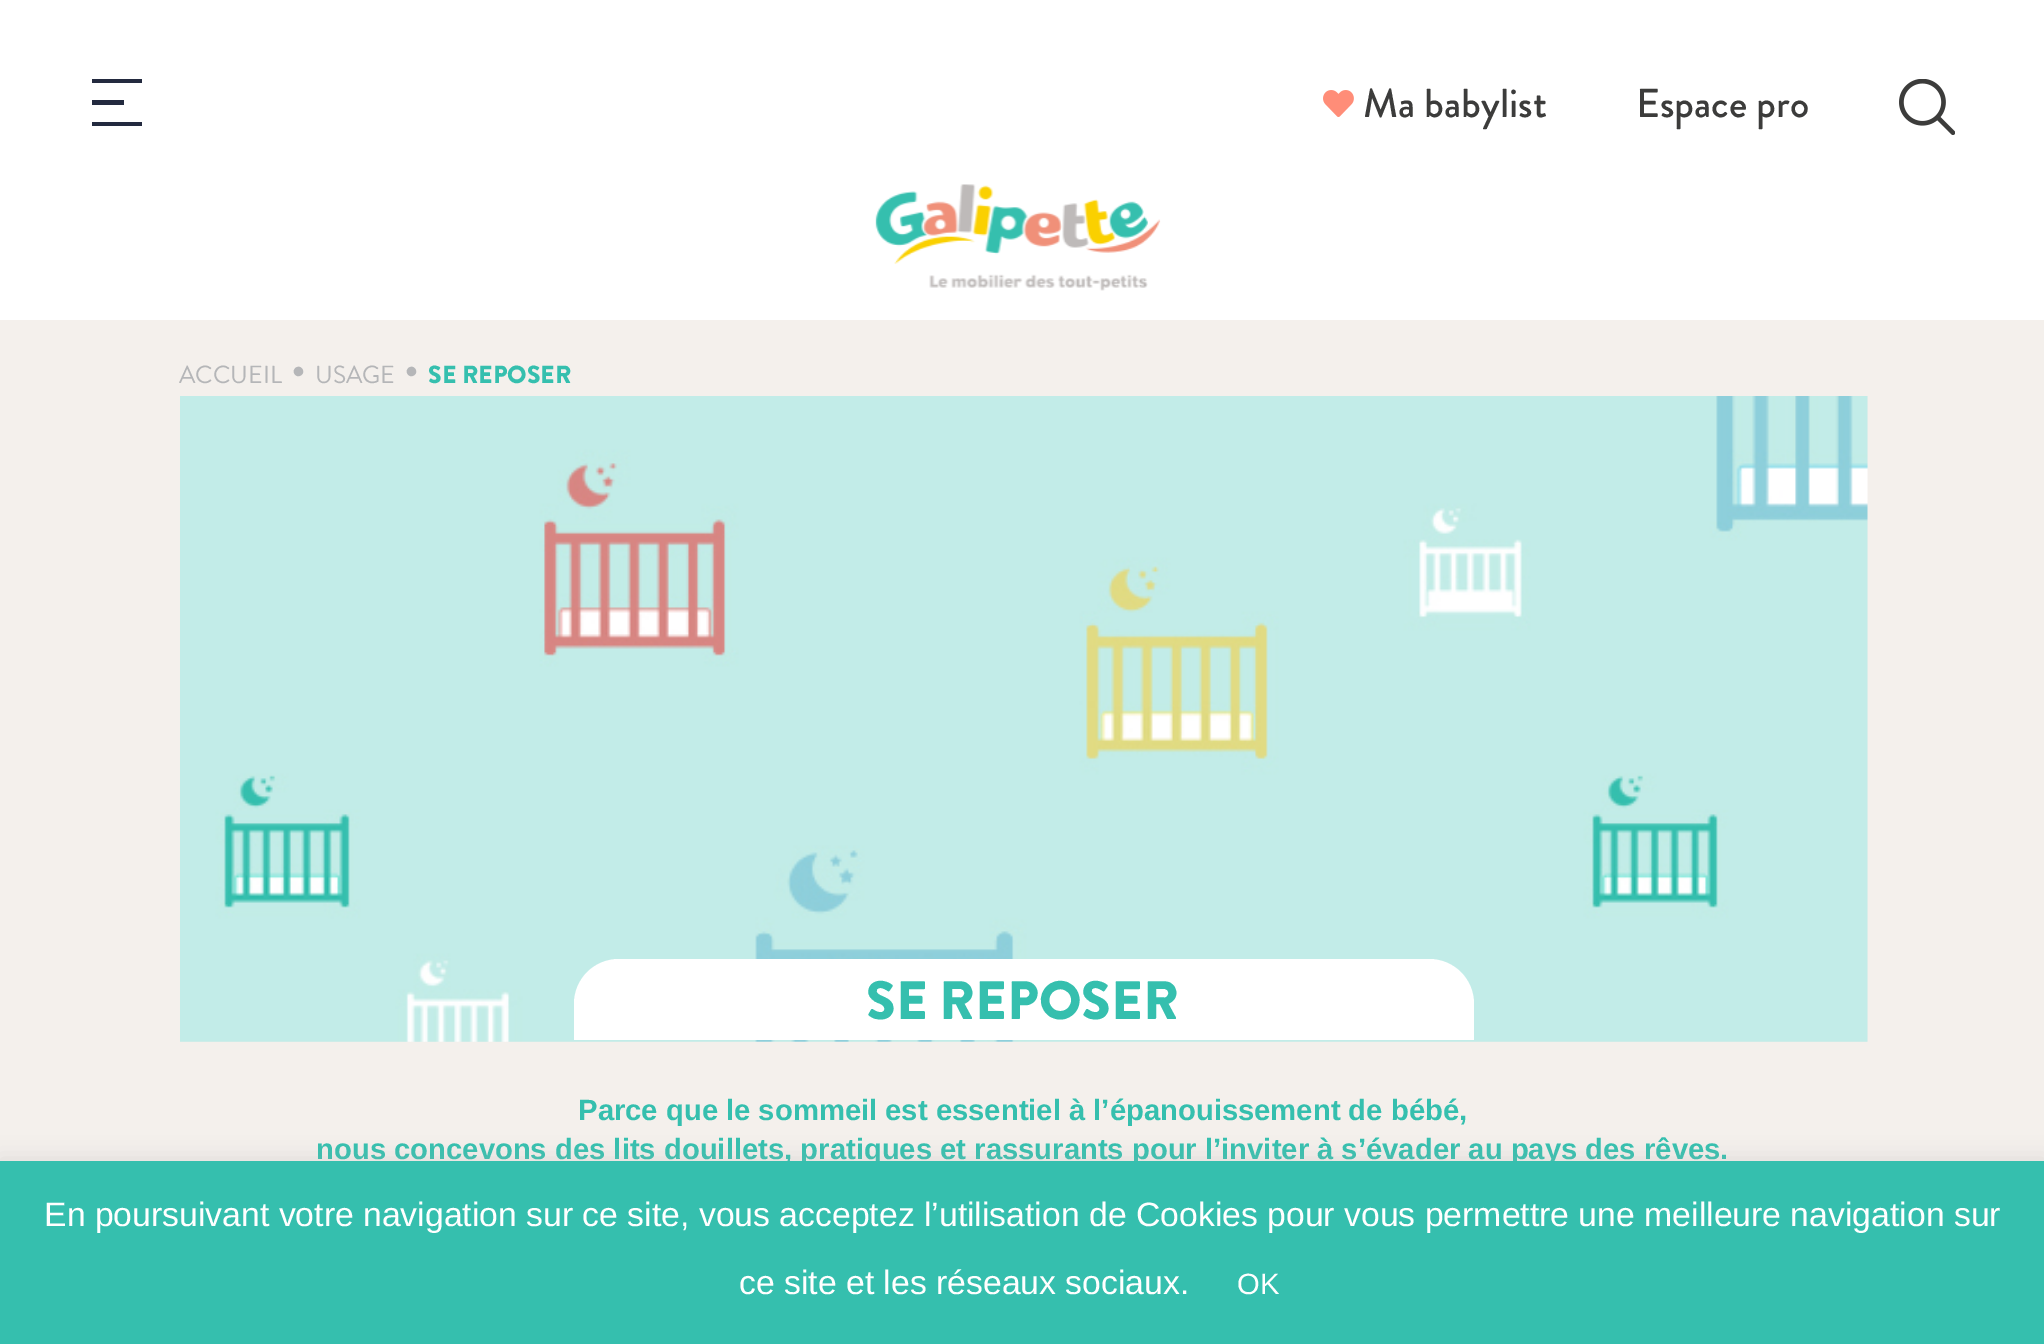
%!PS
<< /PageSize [2044 1344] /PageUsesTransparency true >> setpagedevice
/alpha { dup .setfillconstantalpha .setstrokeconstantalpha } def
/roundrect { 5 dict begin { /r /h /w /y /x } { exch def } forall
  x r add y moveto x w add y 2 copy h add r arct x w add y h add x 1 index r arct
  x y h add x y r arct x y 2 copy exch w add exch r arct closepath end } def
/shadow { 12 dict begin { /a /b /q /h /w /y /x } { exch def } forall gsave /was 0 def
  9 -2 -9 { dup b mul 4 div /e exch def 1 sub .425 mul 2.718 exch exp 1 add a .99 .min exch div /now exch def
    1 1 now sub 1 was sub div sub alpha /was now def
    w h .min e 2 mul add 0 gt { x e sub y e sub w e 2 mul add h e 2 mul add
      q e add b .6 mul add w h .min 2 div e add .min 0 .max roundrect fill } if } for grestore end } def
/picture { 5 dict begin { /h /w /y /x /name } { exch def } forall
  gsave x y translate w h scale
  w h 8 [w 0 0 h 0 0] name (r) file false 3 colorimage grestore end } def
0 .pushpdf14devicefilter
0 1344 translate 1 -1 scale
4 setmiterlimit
0.957 0.941 0.925 setrgbcolor
0 0 2044 1344 rectfill
1 setgray
0 0 2044 320 rectfill
0.137 0.165 0.247 setrgbcolor
92 79 50 4 rectfill
92 100 32 5 rectfill
92 122 50 4 rectfill
(img1.rgb) 1323 90 31 27 picture
/BrandonGrotesque-Medium [40.5 0 0 -40.5 0 0] selectfont
0.235 0.235 0.231 setrgbcolor
1363 117 moveto (Ma babylist) show
1636 117 moveto (Espace pro) show
(img2.rgb) 1899 79 56 56 picture
(img3.rgb) 875 184 286 107 picture
/BrandonGrotesque-Regular [24.75 0 0 -24.75 0 0] selectfont
0.71 0.714 0.722 setrgbcolor
179 383 moveto (ACCUEIL) show
/BrandonGrotesque-Medium [40.5 0 0 -40.5 0 0] selectfont
291 383 moveto (•) show
/BrandonGrotesque-Regular [24.75 0 0 -24.75 0 0] selectfont
315 383 moveto (USAGE) show
/BrandonGrotesque-Medium [40.5 0 0 -40.5 0 0] selectfont
404 383 moveto (•) show
/BrandonGrotesque-Black [24.75 0 0 -24.75 0 0] selectfont
0.208 0.749 0.682 setrgbcolor
428 383 moveto (SE REPOSER) show
(img4.rgb) 180 396 1688 646 picture
1 setgray
newpath 619 959 moveto 1429 959 lineto 1454 959 1474 979 1474 1004 curveto 1474 1040 lineto 574 1040 lineto 574 1004 lineto 574 979 594 959 619 959 curveto closepath fill
/BrandonGrotesque-Black [54 0 0 -54 0 0] selectfont
0.208 0.749 0.682 setrgbcolor
866 1019 moveto (SE REPOSER) show
/LiberationSans-Bold [29.25 0 0 -29.25 0 0] selectfont
578 1120 moveto (Parce que le sommeil est essentiel à l’épanouissement de bébé,) show
316 1159 moveto (nous concevons des lits douillets, pratiques et rassurants pour l’inviter à s’évader au pays des rêves.) show
0.675 0.671 0.671 setrgbcolor
0 1159 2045 184 0 11 0.3 shadow
0.208 0.749 0.682 setrgbcolor
0 1161 2044 183 rectfill
/LiberationSans-Regular [33.75 0 0 -33.75 0 0] selectfont
1 setgray
44 1226 moveto (En poursuivant votre navigation sur ce site, vous acceptez l’utilisation de Cookies pour vous permettre une meilleure navigation sur) show
739 1294 moveto (ce site et les réseaux sociaux.) show
/LiberationSans-Regular [29.25 0 0 -29.25 0 0] selectfont
1237 1294 moveto (OK) show
.poppdf14devicefilter showpage
